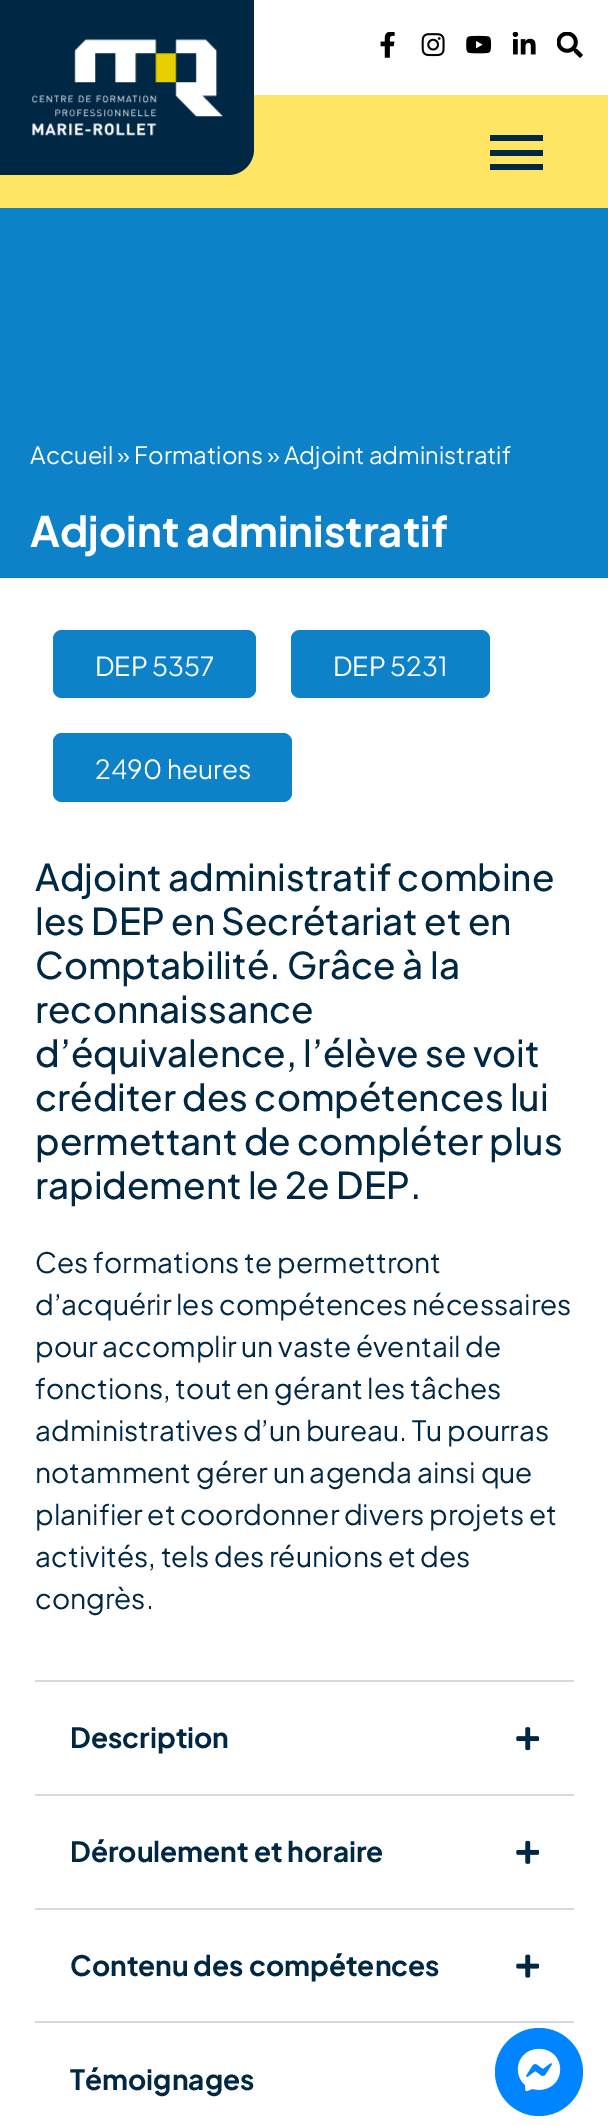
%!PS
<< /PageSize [608 2126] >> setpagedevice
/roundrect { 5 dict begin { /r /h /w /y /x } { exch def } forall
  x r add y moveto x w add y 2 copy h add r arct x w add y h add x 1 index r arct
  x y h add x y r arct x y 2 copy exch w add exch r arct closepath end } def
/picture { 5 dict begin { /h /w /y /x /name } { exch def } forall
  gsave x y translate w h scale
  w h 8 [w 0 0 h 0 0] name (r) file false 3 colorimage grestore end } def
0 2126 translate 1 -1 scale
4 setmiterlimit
1 setgray
0 0 608 2126 rectfill
1 0.898 0.388 setrgbcolor
0 95 608 113 rectfill
0 0.153 0.267 setrgbcolor
newpath 0 0 moveto 254 0 lineto 254 149 lineto 254 163.5 242.5 175 228 175 curveto 0 175 lineto closepath fill
(img1.rgb) 32 39 191 97 picture
(img2.rgb) 380 32 15 26 picture
(img3.rgb) 421 33 24 24 picture
(img4.rgb) 466 35 26 19 picture
(img5.rgb) 512 32 24 23 picture
(img6.rgb) 557 32 26 26 picture
490 135 53 6 rectfill
490 150 53 6 rectfill
490 164 53 6 rectfill
0.055 0.51 0.788 setrgbcolor
0 208 608 370 rectfill
/PlusJakartaSans-Regular [23.8 0 0 -23.8 0 0] selectfont
1 setgray
30 464 moveto (Accueil » Formations » Adjoint administratif) show
/PlusJakartaSans-Bold [42 0 0 -42 0 0] selectfont
30 547 moveto (Adjoint administratif) show
0.055 0.51 0.788 setrgbcolor
53 630 203 68 9 roundrect fill
/PlusJakartaSans-Regular [26.25 0 0 -26.25 0 0] selectfont
1 setgray
95 676 moveto (DEP 5357) show
0.055 0.51 0.788 setrgbcolor
291 630 199 68 9 roundrect fill
1 setgray
333 676 moveto (DEP 5231) show
0.055 0.51 0.788 setrgbcolor
53 733 239 69 9 roundrect fill
1 setgray
95 779 moveto (2490 heures) show
/PlusJakartaSans-Medium [36.75 0 0 -36.75 0 0] selectfont
0 0.153 0.267 setrgbcolor
35 891 moveto (Adjoint administratif combine) show
35 935 moveto (les DEP en Secrétariat et en) show
35 979 moveto (Comptabilité. Grâce à la) show
35 1023 moveto (reconnaissance) show
35 1067 moveto (d’équivalence, l’élève se voit) show
35 1111 moveto (créditer des compétences lui) show
35 1155 moveto (permettant de compléter plus) show
35 1199 moveto (rapidement le 2e DEP.) show
/PlusJakartaSans-Regular [28 0 0 -28 0 0] selectfont
35 1273 moveto (Ces formations te permettront) show
35 1315 moveto (d’acquérir les compétences nécessaires) show
35 1357 moveto (pour accomplir un vaste éventail de) show
35 1399 moveto (fonctions, tout en gérant les tâches) show
35 1441 moveto (administratives d’un bureau. Tu pourras) show
35 1483 moveto (notamment gérer un agenda ainsi que) show
35 1525 moveto (planifier et coordonner divers projets et) show
35 1567 moveto (activités, tels des réunions et des) show
35 1609 moveto (congrès.) show
0.835 0.847 0.863 setrgbcolor
35 1680 539 2 rectfill
/PlusJakartaSans-Bold [28 0 0 -28 0 0] selectfont
0 0.153 0.267 setrgbcolor
70 1748 moveto (Description) show
(img7.rgb) 516 1727 23 24 picture
0.835 0.847 0.863 setrgbcolor
35 1794 539 2 rectfill
0 0.153 0.267 setrgbcolor
70 1862 moveto (Déroulement et horaire) show
(img8.rgb) 516 1840 23 24 picture
0.835 0.847 0.863 setrgbcolor
35 1908 539 2 rectfill
0 0.153 0.267 setrgbcolor
70 1976 moveto (Contenu des compétences) show
(img9.rgb) 516 1954 23 24 picture
0.835 0.847 0.863 setrgbcolor
35 2021 539 2 rectfill
0 0.153 0.267 setrgbcolor
70 2090 moveto (Témoignages) show
0 0.518 1 setrgbcolor
newpath 539 2072 44 0 360 arc closepath fill
(img10.rgb) 517 2048 44 44 picture
showpage
